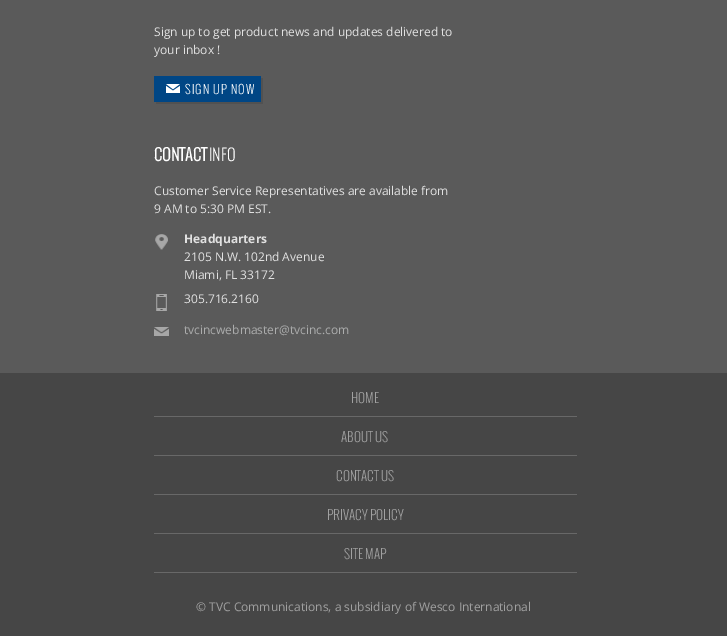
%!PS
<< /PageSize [727 636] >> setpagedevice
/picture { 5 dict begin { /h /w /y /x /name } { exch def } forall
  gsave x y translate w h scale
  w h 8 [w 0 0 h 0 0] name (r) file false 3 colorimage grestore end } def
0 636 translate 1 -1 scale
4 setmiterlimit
0.275 setgray
0 0 727 636 rectfill
0.353 setgray
0 0 727 373 rectfill
/OpenSans-Regular [12 0 0 -12 0 0] selectfont
0.882 setgray
154 36 moveto (Sign up to get product news and updates delivered to) show
154 54 moveto (your inbox !) show
0.318 setgray
newpath 156 102 moveto 156 104 lineto 263 104 lineto 263 78 lineto 261 78 lineto 261 102 lineto closepath fill
0 0.275 0.522 setrgbcolor
154 76 107 26 rectfill
(img1.rgb) 166 84 14 9 picture
/Oswald-Light [12 0 0 -12 0 0] selectfont
1 setgray
185 94 moveto 1 0 (SIGN UP NOW) ashow
/Oswald-Bold [16 0 0 -16 0 0] selectfont
154 161 moveto (CONTACT) show
/Oswald-Light [16 0 0 -16 0 0] selectfont
209 161 moveto (INFO) show
/OpenSans-Regular [12 0 0 -12 0 0] selectfont
0.882 setgray
154 195 moveto (Customer Service Representatives are available from) show
154 213 moveto (9 AM to 5:30 PM EST.) show
(img2.rgb) 155 234 13 16 picture
/OpenSans-Bold [12 0 0 -12 0 0] selectfont
184 243 moveto (Headquarters) show
/OpenSans-Regular [12 0 0 -12 0 0] selectfont
184 261 moveto (2105 N.W. 102nd Avenue) show
184 279 moveto (Miami, FL 33172) show
(img3.rgb) 156 294 11 17 picture
184 303 moveto (305.716.2160) show
(img4.rgb) 154 327 15 9 picture
0.675 0.678 0.678 setrgbcolor
184 334 moveto (tvcincwebmaster@tvcinc.com) show
0.408 setgray
154 416 423 1 rectfill
/Oswald-Light [13 0 0 -13 0 0] selectfont
0.631 setgray
351 403 moveto (HOME) show
0.408 setgray
154 455 423 1 rectfill
0.631 setgray
341 442 moveto (ABOUT US) show
0.408 setgray
154 494 423 1 rectfill
0.631 setgray
336 481 moveto (CONTACT US) show
0.408 setgray
154 533 423 1 rectfill
0.631 setgray
327 520 moveto (PRIVACY POLICY) show
0.408 setgray
154 572 423 1 rectfill
0.631 setgray
344 559 moveto (SITE MAP) show
/OpenSans-Regular [12 0 0 -12 0 0] selectfont
196 611 moveto (© TVC Communications, a subsidiary of Wesco International) show
showpage
